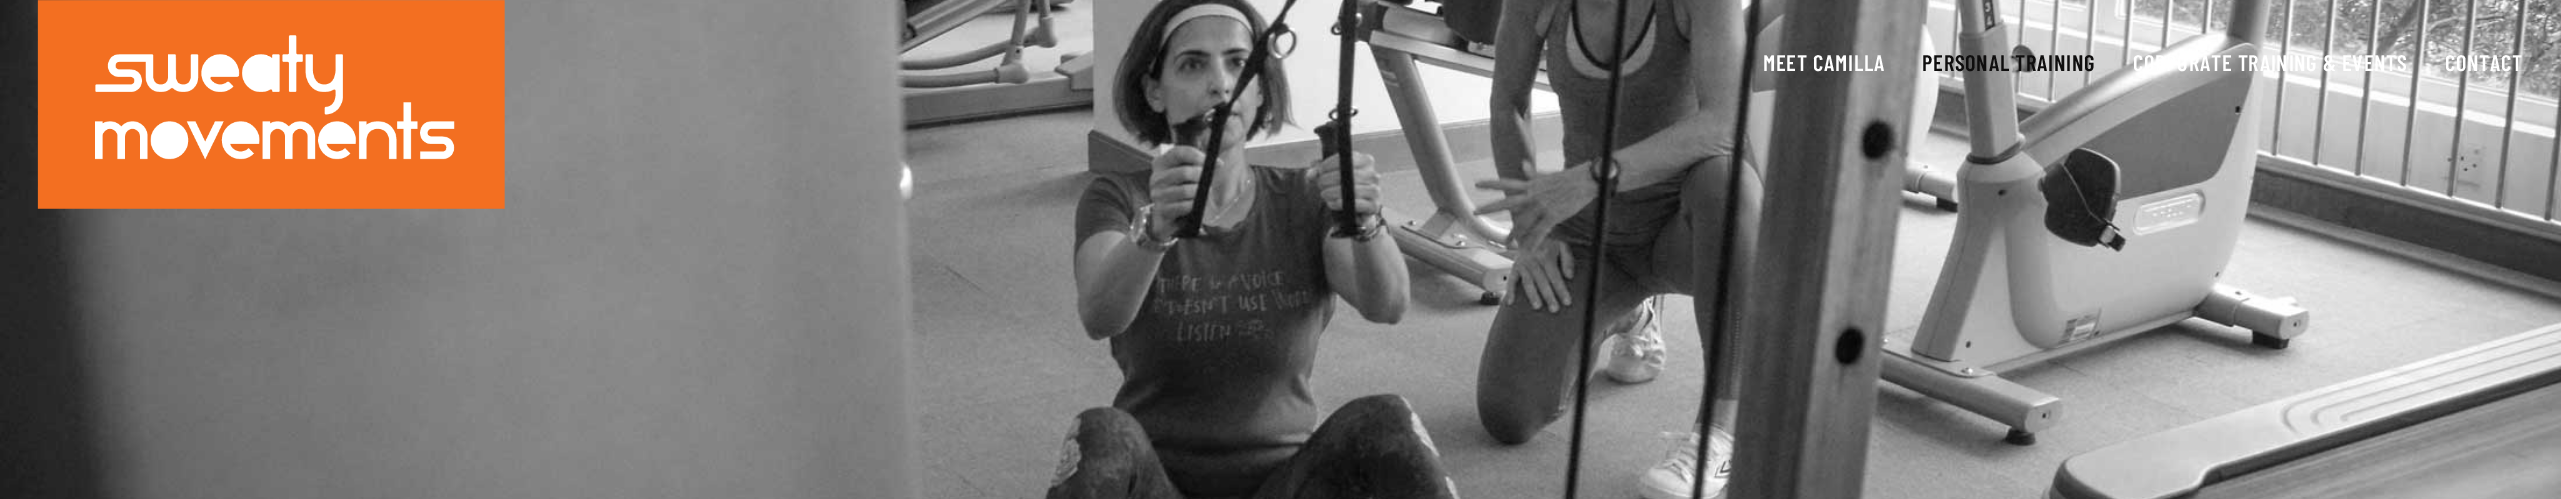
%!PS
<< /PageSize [2561 499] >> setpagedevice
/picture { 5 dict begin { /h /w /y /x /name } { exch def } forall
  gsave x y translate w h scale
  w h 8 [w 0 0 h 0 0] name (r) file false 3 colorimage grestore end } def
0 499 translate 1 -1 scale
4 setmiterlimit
1 setgray
0 0 2561 499 rectfill
(img1.rgb) 0 0 2561 499 picture
(img2.rgb) 37 0 468 209 picture
/BarlowCondensed-SemiBold [22.5 0 0 -22.5 0 0] selectfont
1763 71 moveto 0.75 0 (MEET CAMILLA) ashow
0.059 0.055 0.055 setrgbcolor
1922 71 moveto 0.75 0 (PERSONAL TRAINING) ashow
1 setgray
2133 71 moveto 0.75 0 (CORPORATE TRAINING & EVENTS) ashow
2445 71 moveto 0.75 0 (CONTACT) ashow
showpage
